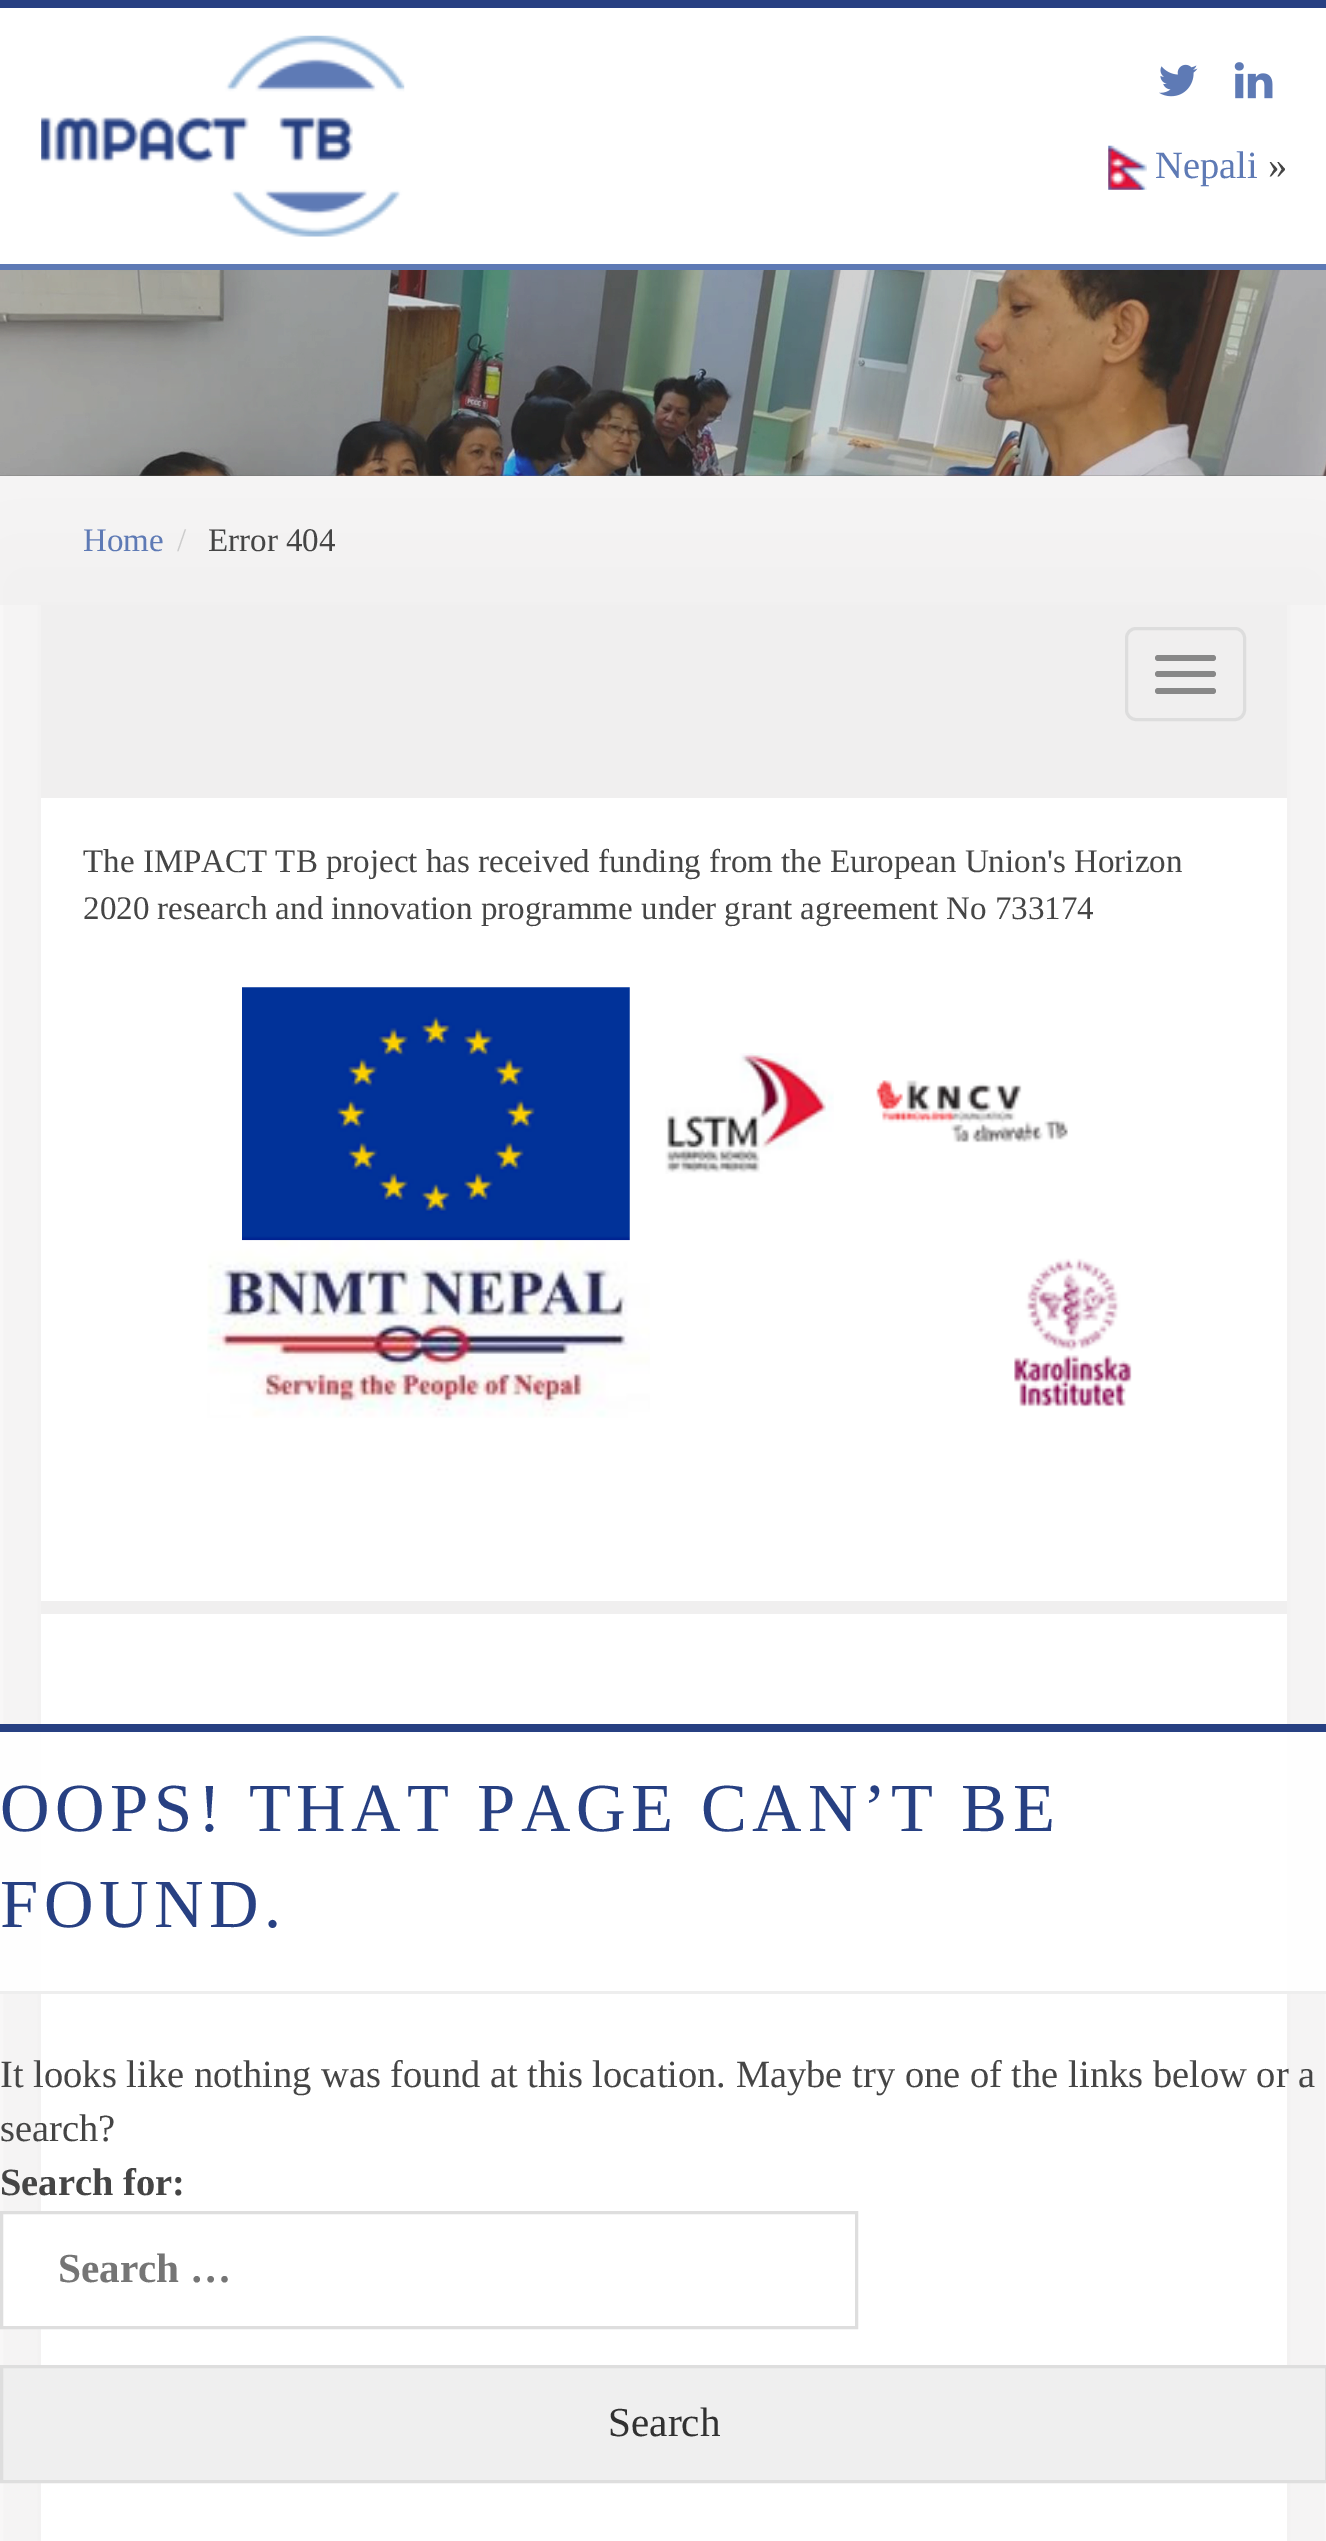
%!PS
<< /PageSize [1326 2541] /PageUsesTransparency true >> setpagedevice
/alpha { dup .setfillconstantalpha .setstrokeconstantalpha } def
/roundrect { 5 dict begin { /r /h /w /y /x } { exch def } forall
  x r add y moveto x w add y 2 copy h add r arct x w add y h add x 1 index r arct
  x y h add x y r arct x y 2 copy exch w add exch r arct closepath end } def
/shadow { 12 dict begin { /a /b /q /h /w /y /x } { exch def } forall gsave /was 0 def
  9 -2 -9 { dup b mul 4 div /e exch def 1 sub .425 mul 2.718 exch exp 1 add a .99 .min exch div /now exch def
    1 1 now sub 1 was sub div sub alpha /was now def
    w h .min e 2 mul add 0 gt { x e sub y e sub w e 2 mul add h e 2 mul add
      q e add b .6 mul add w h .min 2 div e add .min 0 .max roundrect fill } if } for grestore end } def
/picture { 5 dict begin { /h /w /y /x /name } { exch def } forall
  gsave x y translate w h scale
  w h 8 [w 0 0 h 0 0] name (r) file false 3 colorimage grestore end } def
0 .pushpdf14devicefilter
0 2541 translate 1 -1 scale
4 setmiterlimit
1 setgray
0 0 1326 2541 rectfill
0.153 0.251 0.51 setrgbcolor
0 0 1326 8 rectfill
0.369 0.478 0.71 setrgbcolor
0 264 1326 6 rectfill
(img1.rgb) 41 35 364 202 picture
(img2.rgb) 1159 64 39 33 picture
(img3.rgb) 1234 62 39 37 picture
(img4.rgb) 1108 145 39 45 picture
/LiberationSerif-Regular [38.5 0 0 -38.5 0 0] selectfont
1155 178 moveto (Nepali) show
0.271 setgray
1268 178 moveto (») show
0.961 setgray
0 476 1326 129 rectfill
gsave
newpath 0 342 moveto 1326 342 lineto 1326 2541 lineto 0 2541 lineto closepath 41 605 moveto 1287 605 lineto 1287 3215 lineto 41 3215 lineto closepath eoclip newpath
0.941 0.937 0.937 setrgbcolor
-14 550 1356 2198 0 69 1 shadow
grestore
0.4 setgray
0 270 1326 206 rectfill
(img5.rgb) 0 270 1326 206 picture
/LiberationSerif-Regular [33 0 0 -33 0 0] selectfont
0.369 0.478 0.71 setrgbcolor
83 551 moveto (Home) show
0.8 setgray
177 551 moveto (/) show
0.271 setgray
208 551 moveto (Error 404) show
0.941 0.937 0.937 setrgbcolor
41 605 1246 1009 rectfill
0.867 setgray
3 setlinewidth
1126.5 628.5 118 91 9.5 roundrect stroke
0.533 setgray
1155 655 61 6 3 roundrect fill
1155 671 61 6 3 roundrect fill
1155 688 61 6 3 roundrect fill
1 setgray
41 798 1246 803 rectfill
0.271 setgray
83 872 moveto (The IMPACT TB project has received funding from the European Union's Horizon) show
83 919 moveto (2020 research and innovation programme under grant agreement No 733174) show
(img6.rgb) 242 987 388 254 picture
(img7.rgb) 665 1053 169 121 picture
(img8.rgb) 876 1080 192 63 picture
(img9.rgb) 207 1240 443 178 picture
(img10.rgb) 1014 1258 118 149 picture
0.9 alpha
1 setgray
0 1732 1326 259 rectfill
1 alpha
0.153 0.251 0.51 setrgbcolor
0 1724 1326 8 rectfill
0.933 setgray
0 1991 1326 3 rectfill
/LiberationSerif-Regular [68.75 0 0 -68.75 0 0] selectfont
0.153 0.251 0.51 setrgbcolor
0 1831 moveto 5.5 0 (OOPS! THAT PAGE CAN’T BE) ashow
0 1927 moveto 5.5 0 (FOUND.) ashow
/LiberationSerif-Regular [38.5 0 0 -38.5 0 0] selectfont
0.271 setgray
0 2087 moveto (It looks like nothing was found at this location. Maybe try one of the links below or a) show
0 2141 moveto (search?) show
/LiberationSerif-Bold [38.5 0 0 -38.5 0 0] selectfont
0 2195 moveto (Search for:) show
1 setgray
3 2214 39 112 rectfill
0.871 setgray
1.5 2212.5 855 115 rectstroke
/LiberationSerif-Bold [41.25 0 0 -41.25 0 0] selectfont
0.459 setgray
58 2282 moveto (Search …) show
0.937 setgray
newpath 1.5 2366.5 moveto 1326.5 2366.5 lineto 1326.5 2481.5 lineto 1.5 2481.5 lineto closepath gsave fill grestore
0.871 setgray
stroke
/LiberationSerif-Regular [41.25 0 0 -41.25 0 0] selectfont
0.192 setgray
608 2436 moveto (Search) show
.poppdf14devicefilter showpage
